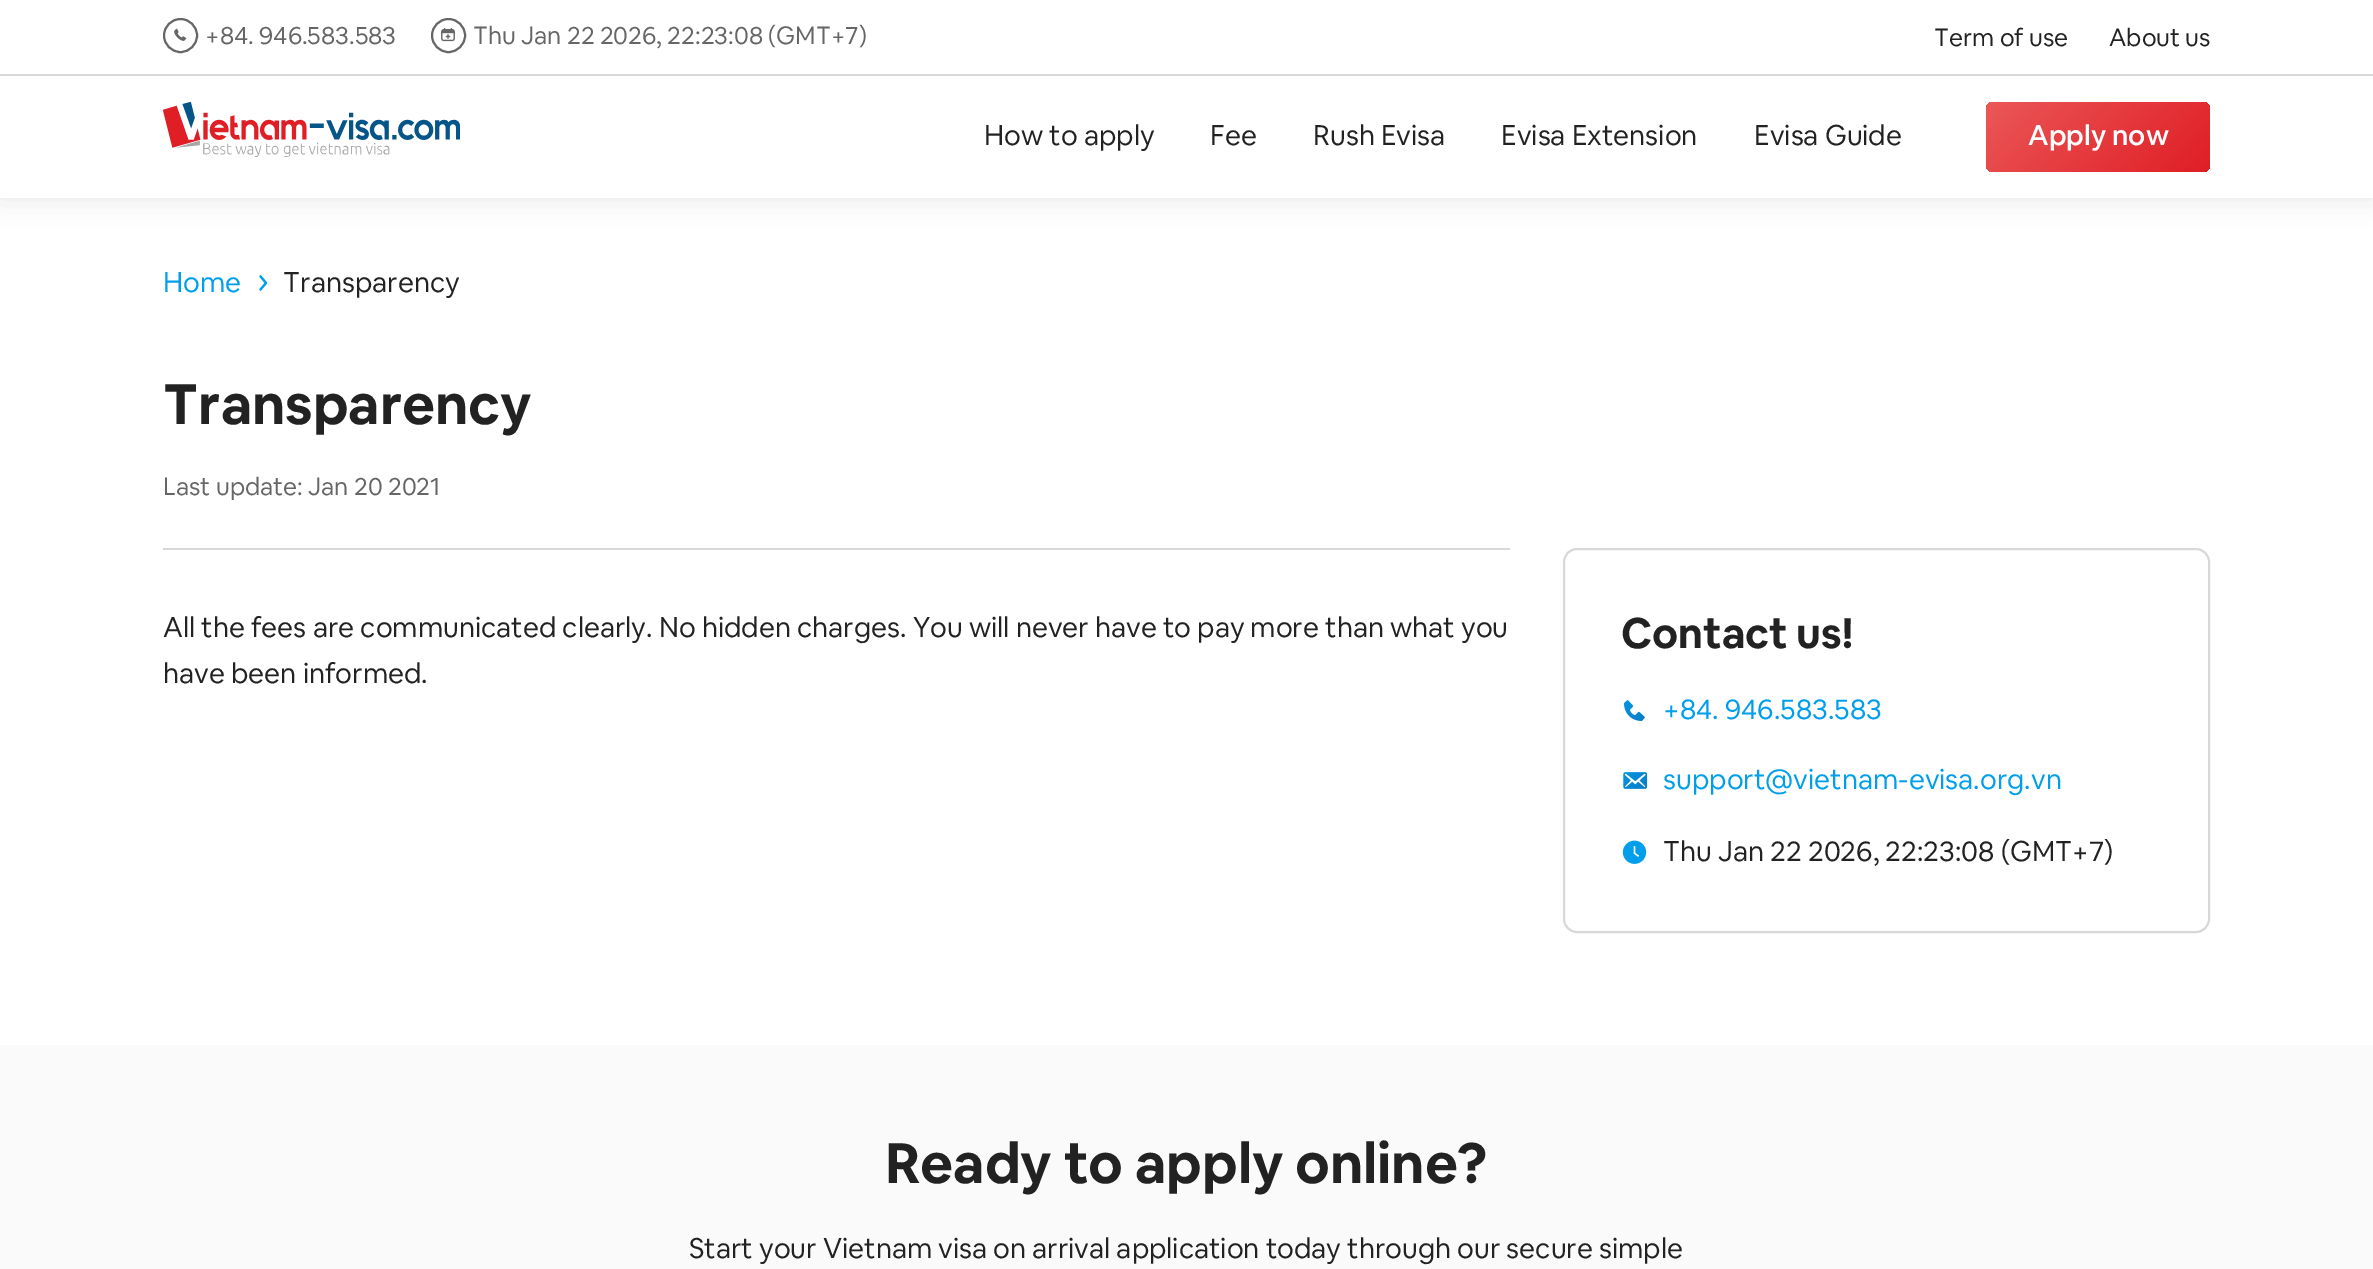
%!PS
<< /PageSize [2373 1269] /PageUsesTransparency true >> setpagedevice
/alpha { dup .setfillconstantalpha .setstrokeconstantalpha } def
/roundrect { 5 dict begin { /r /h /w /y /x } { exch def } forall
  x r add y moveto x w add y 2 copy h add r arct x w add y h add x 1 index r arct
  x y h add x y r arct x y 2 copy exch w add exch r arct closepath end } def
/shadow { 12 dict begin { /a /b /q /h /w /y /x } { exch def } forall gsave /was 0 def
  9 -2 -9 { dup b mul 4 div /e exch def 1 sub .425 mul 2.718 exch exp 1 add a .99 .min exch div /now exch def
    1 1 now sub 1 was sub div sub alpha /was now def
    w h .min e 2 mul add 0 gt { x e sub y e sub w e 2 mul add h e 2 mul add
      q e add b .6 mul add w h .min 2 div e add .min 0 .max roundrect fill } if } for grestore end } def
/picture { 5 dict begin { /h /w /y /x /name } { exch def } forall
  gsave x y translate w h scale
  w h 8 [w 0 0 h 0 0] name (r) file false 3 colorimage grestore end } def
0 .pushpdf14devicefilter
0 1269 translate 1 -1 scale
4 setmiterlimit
1 setgray
0 0 2373 1269 rectfill
0 setgray
0 0 2373 198 0 14 0.1 shadow
1 setgray
0 0 2373 198 rectfill
0.847 setgray
0 74 2373 2 rectfill
0.4 setgray
2 setlinewidth
newpath 180.5 35.5 16.5 0 360 arc closepath stroke
(img1.rgb) 174 28 13 13 picture
/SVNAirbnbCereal-Regular [24.5 0 0 -24.5 0 0] selectfont
205 44 moveto (+84. 946.583.583) show
newpath 448.5 35.5 16.5 0 360 arc closepath stroke
(img2.rgb) 441 27 14 15 picture
473 44 moveto (Thu Jan 22 2026, 22:23:08 \(GMT+7\)) show
0.133 setgray
1934 46 moveto (Term of use) show
2109 46 moveto (About us) show
(img3.rgb) 163 102 297 55 picture
/SVNAirbnbCereal-Regular [28 0 0 -28 0 0] selectfont
984 145 moveto (How to apply) show
1210 145 moveto (Fee) show
1313 145 moveto (Rush Evisa) show
1501 145 moveto (Evisa Extension) show
1754 145 moveto (Evisa Guide) show
gsave 1986 102 224 70 7 roundrect clip newpath
<< /ShadingType 2 /ColorSpace /DeviceRGB /Coords [2172 210 2025 63] /Extend [true true] /Function << /FunctionType 2 /Domain [0 1] /C0 [0.875 0.118 0.149] /C1 [0.922 0.341 0.341] /N 1 >> >> shfill grestore
/SVNAirbnbCereal-Medium [28 0 0 -28 0 0] selectfont
1 setgray
2028 145 moveto (Apply now) show
/SVNAirbnbCereal-Regular [28 0 0 -28 0 0] selectfont
0 0.62 0.922 setrgbcolor
163 292 moveto (Home) show
(img4.rgb) 259 275 9 16 picture
0.133 setgray
283 292 moveto (Transparency) show
/SVNAirbnbCereal-Bold [56 0 0 -56 0 0] selectfont
163 424 moveto (Transparency) show
/SVNAirbnbCereal-Regular [24.5 0 0 -24.5 0 0] selectfont
0.4 setgray
163 495 moveto (Last update: Jan 20 2021) show
0.847 setgray
163 548 1347 2 rectfill
/SVNAirbnbCereal-Regular [28 0 0 -28 0 0] selectfont
0.133 setgray
163 637 moveto (All the fees are communicated clearly. No hidden charges. You will never have to pay more than what you) show
163 683 moveto (have been informed.) show
0.847 setgray
1564 549 645 383 13 roundrect stroke
/SVNAirbnbCereal-Bold [42 0 0 -42 0 0] selectfont
0.133 setgray
1621 648 moveto (Contact us!) show
(img5.rgb) 1624 700 21 21 picture
/SVNAirbnbCereal-Regular [28 0 0 -28 0 0] selectfont
0 0.62 0.922 setrgbcolor
1663 719 moveto (+84. 946.583.583) show
(img6.rgb) 1623 772 25 17 picture
1663 789 moveto (support@vietnam-evisa.org.vn) show
(img7.rgb) 1622 840 25 24 picture
0.133 setgray
1663 861 moveto (Thu Jan 22 2026, 22:23:08 \(GMT+7\)) show
0.98 setgray
0 1045 2373 224 rectfill
/SVNAirbnbCereal-Bold [56 0 0 -56 0 0] selectfont
0.133 setgray
885 1183 moveto (Ready to apply online?) show
/SVNAirbnbCereal-Regular [28 0 0 -28 0 0] selectfont
689 1258 moveto (Start your Vietnam visa on arrival application today through our secure simple) show
.poppdf14devicefilter showpage
